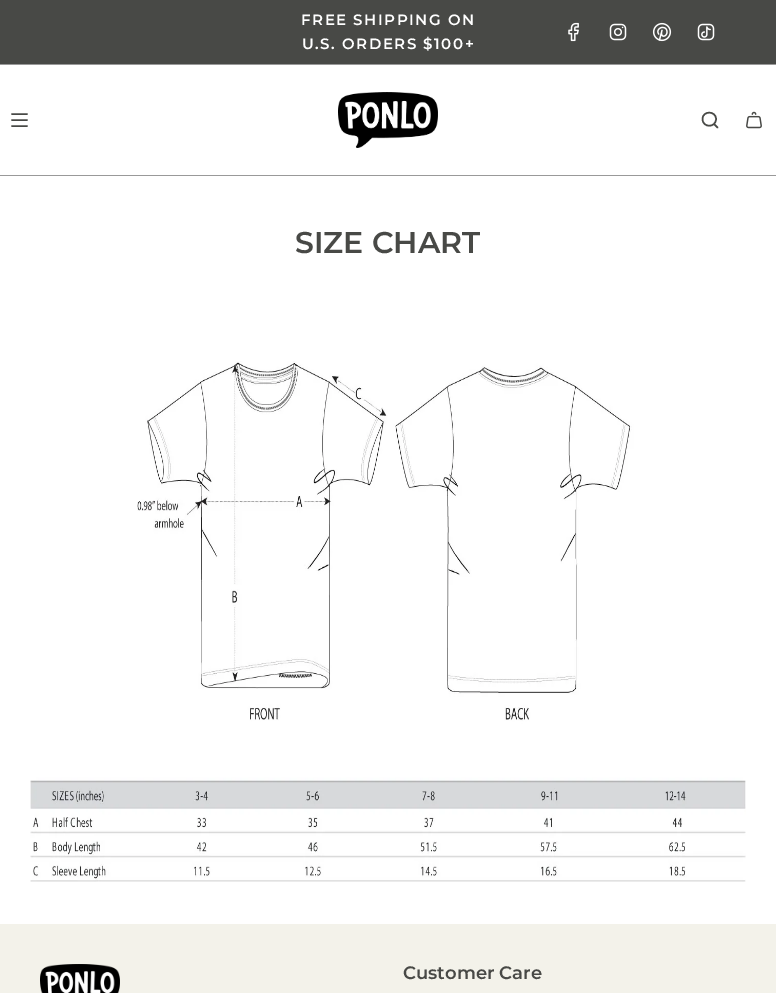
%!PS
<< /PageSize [776 993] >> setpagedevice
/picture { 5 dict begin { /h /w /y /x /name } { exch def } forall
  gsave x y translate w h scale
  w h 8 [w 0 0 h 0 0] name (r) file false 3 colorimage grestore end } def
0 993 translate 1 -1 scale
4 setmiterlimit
1 setgray
0 0 776 993 rectfill
0.282 0.286 0.275 setrgbcolor
0 0 776 64 rectfill
/Montserrat-SemiBold [15 0 0 -15 0 0] selectfont
1 setgray
301 25 moveto 1.5 0 (FREE SHIPPING ON) ashow
302 49 moveto 1.5 0 (U.S. ORDERS $100+) ashow
(img1.rgb) 568 22 11 20 picture
(img2.rgb) 609 23 18 18 picture
(img3.rgb) 652 22 20 20 picture
(img4.rgb) 697 23 18 18 picture
0.6 setgray
0 64 776 1 rectfill
0 175 776 1 rectfill
0.282 0.286 0.275 setrgbcolor
1.5 setlinewidth
1 setlinecap
1 setlinejoin
newpath 12 114 moveto 27 114 lineto 12 120 moveto 27 120 lineto 12 126 moveto 27 126 lineto stroke
(img5.rgb) 338 92 100 56 picture
newpath 714 124 moveto 717.5 127.5 lineto 702.5 119 moveto 702.5 128 716 128 716 119 curveto 716 110.5 702.5 110.5 702.5 119 curveto closepath stroke
(img6.rgb) 746 111 16 18 picture
/Montserrat-SemiBold [30 0 0 -30 0 0] selectfont
295 253 moveto (SIZE CHART) show
(img7.rgb) 30 361 716 521 picture
0.953 0.949 0.918 setrgbcolor
0 924 776 69 rectfill
(img8.rgb) 40 964 80 29 picture
/Montserrat-SemiBold [18 0 0 -18 0 0] selectfont
0.282 0.286 0.275 setrgbcolor
403 979 moveto (Customer Care) show
showpage
